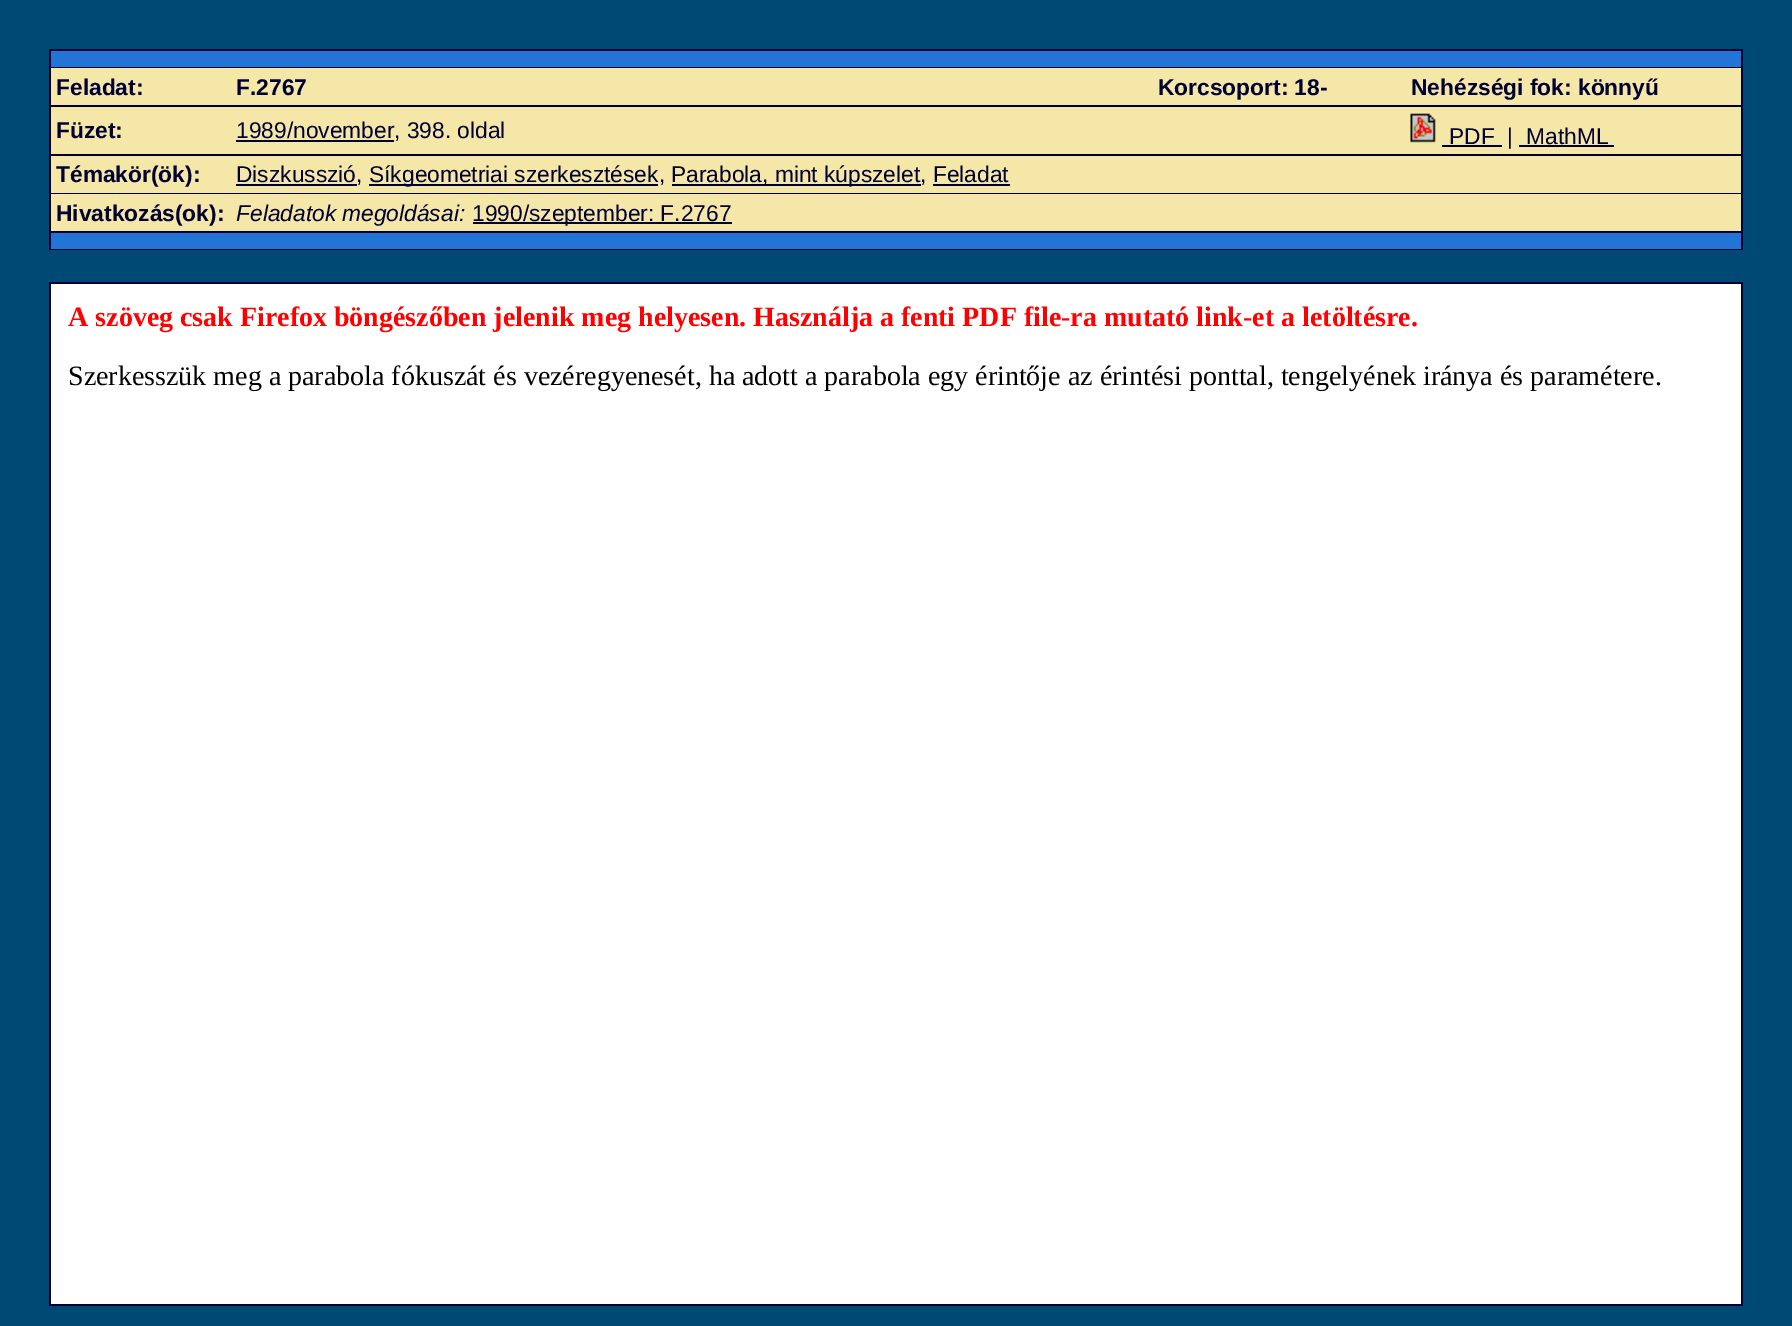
%!PS
<< /PageSize [1792 1326] >> setpagedevice
/picture { 5 dict begin { /h /w /y /x /name } { exch def } forall
  gsave x y translate w h scale
  w h 8 [w 0 0 h 0 0] name (r) file false 3 colorimage grestore end } def
0 1326 translate 1 -1 scale
4 setmiterlimit
0 0.286 0.455 setrgbcolor
0 0 1792 1326 rectfill
0 0 0.2 setrgbcolor
49 49 1694 201 rectfill
0.133 0.455 0.843 setrgbcolor
51 51 1690 16 rectfill
0.957 0.906 0.659 setrgbcolor
51 68 1690 37 rectfill
/LiberationSans-Bold [22.75 0 0 -22.75 0 0] selectfont
0 0 0.2 setrgbcolor
56 95 moveto (Feladat:) show
236 95 moveto (F.2767) show
1158 95 moveto (Korcsoport: 18-) show
1411 95 moveto (Nehézségi fok: könnyű) show
0.957 0.906 0.659 setrgbcolor
51 107 1690 47 rectfill
0 0 0.2 setrgbcolor
56 138 moveto (Füzet:) show
236 140 158 2 rectfill
/LiberationSans-Regular [22.75 0 0 -22.75 0 0] selectfont
236 138 moveto (1989/november, 398. oldal) show
(img1.rgb) 1410 113 26 30 picture
1449 144 moveto (PDF) show
1442 145 60 2 rectfill
1507 144 moveto (|) show
1526 144 moveto (MathML) show
1519 145 95 2 rectfill
0.957 0.906 0.659 setrgbcolor
51 156 1690 37 rectfill
/LiberationSans-Bold [22.75 0 0 -22.75 0 0] selectfont
0 0 0.2 setrgbcolor
56 182 moveto (Témakör\(ök\):) show
236 184 121 2 rectfill
/LiberationSans-Regular [22.75 0 0 -22.75 0 0] selectfont
236 182 moveto (Diszkusszió,) show
369 184 289 2 rectfill
369 182 moveto (Síkgeometriai szerkesztések,) show
672 184 249 2 rectfill
671 182 moveto (Parabola, mint kúpszelet, Feladat) show
933 184 77 2 rectfill
0.957 0.906 0.659 setrgbcolor
51 194 1690 37 rectfill
/LiberationSans-Bold [22.75 0 0 -22.75 0 0] selectfont
0 0 0.2 setrgbcolor
56 221 moveto (Hivatkozás\(ok\):) show
/LiberationSans-Italic [22.75 0 0 -22.75 0 0] selectfont
236 221 moveto (Feladatok megoldásai:) show
473 222 259 2 rectfill
/LiberationSans-Regular [22.75 0 0 -22.75 0 0] selectfont
472 221 moveto (1990/szeptember: F.2767) show
0.133 0.455 0.843 setrgbcolor
51 233 1690 16 rectfill
0 0 0.2 setrgbcolor
49 282 1694 1024 rectfill
1 setgray
51 284 1690 1020 rectfill
/LiberationSerif-Bold [28 0 0 -28 0 0] selectfont
1 0 0 setrgbcolor
68 326 moveto (A szöveg csak Firefox böngészőben jelenik meg helyesen. Használja a fenti PDF file-ra mutató link-et a letöltésre.) show
/LiberationSerif-Regular [28 0 0 -28 0 0] selectfont
0 setgray
68 385 moveto (Szerkesszük meg a parabola fókuszát és vezéregyenesét, ha adott a parabola egy érintője az érintési ponttal, tengelyének iránya és paramétere.) show
showpage
